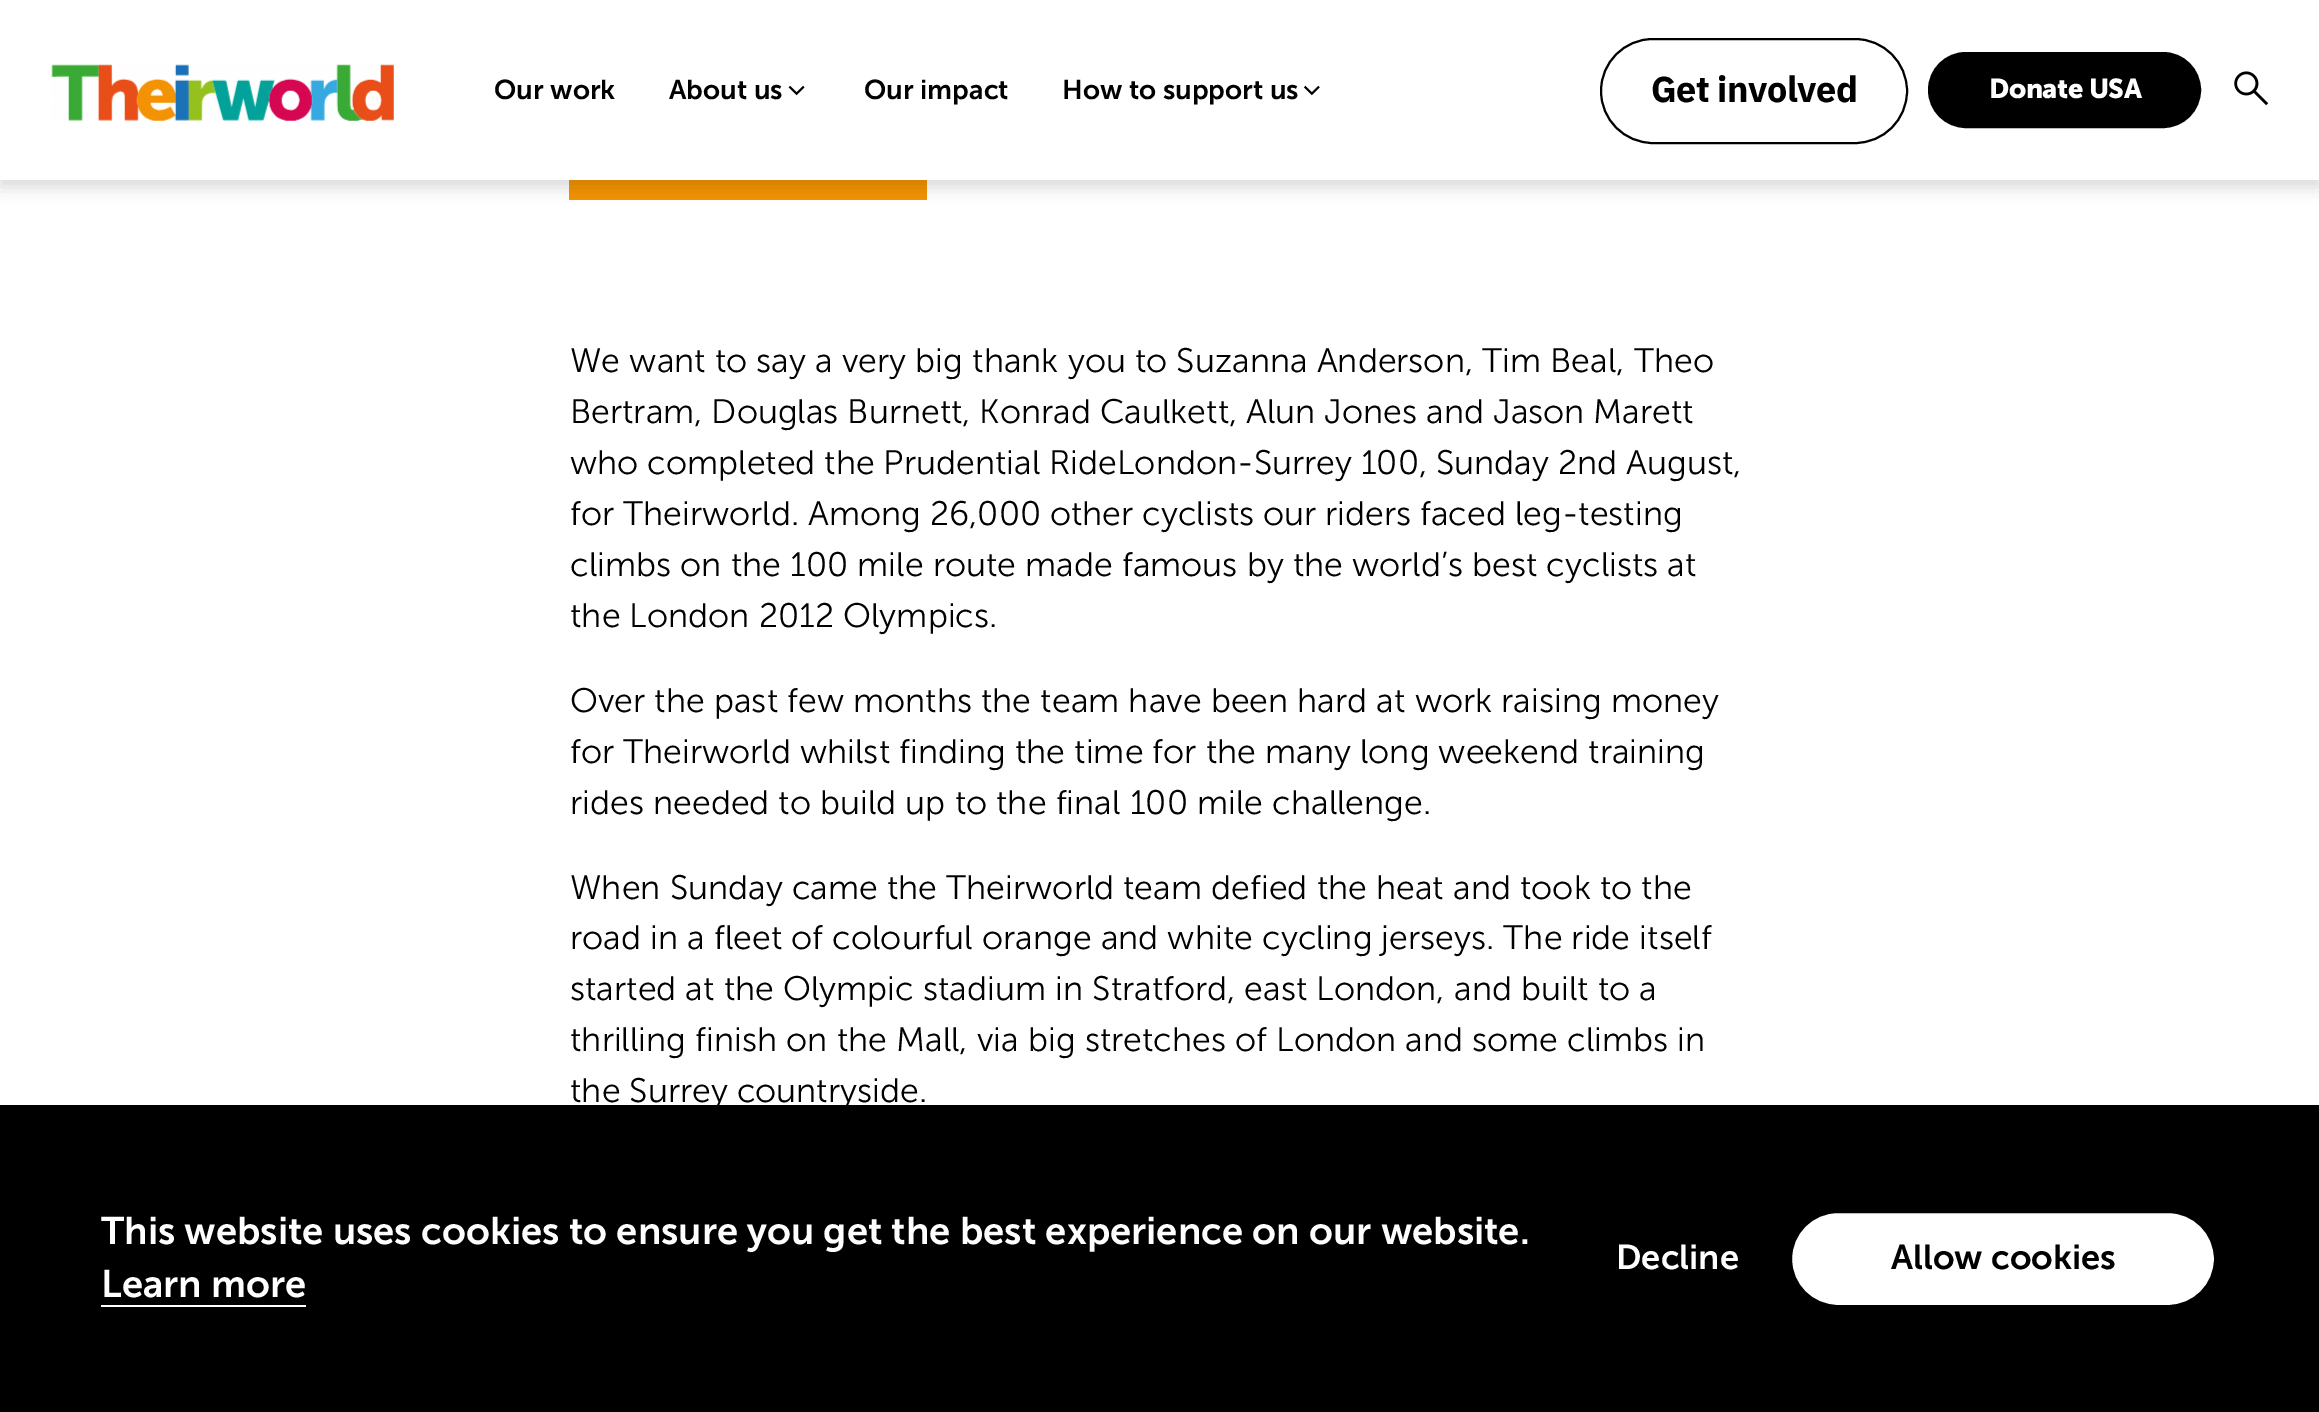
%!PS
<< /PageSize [2319 1412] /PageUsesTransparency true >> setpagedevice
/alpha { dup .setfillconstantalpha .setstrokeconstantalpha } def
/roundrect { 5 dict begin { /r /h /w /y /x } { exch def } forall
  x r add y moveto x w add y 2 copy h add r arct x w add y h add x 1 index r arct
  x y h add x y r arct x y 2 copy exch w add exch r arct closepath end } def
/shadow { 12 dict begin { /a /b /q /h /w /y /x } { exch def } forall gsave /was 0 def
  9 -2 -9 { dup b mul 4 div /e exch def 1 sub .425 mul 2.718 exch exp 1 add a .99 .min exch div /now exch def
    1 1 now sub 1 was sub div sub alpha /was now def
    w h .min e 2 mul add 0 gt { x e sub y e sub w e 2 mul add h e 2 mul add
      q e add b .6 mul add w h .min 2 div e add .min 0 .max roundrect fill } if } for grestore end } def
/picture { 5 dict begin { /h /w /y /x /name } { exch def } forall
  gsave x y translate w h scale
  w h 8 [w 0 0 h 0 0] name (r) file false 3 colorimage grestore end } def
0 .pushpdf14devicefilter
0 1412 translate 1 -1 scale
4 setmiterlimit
1 setgray
0 0 2319 1412 rectfill
0.953 0.576 0.008 setrgbcolor
569 180 358 20 rectfill
0 setgray
0 -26 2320 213 0 8.5 0.15 shadow
1 setgray
0 0 2319 180 rectfill
(img1.rgb) 51 64 343 57 picture
/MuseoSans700-SemiBold [27.25 0 0 -27.25 0 0] selectfont
0 setgray
494 99 moveto (Our work) show
669 99 moveto (About us) show
(img2.rgb) 788 85 17 11 picture
864 99 moveto (Our impact) show
1062 99 moveto (How to support us) show
(img3.rgb) 1303 85 17 11 picture
2 setlinewidth
1601 39 306 104 52 roundrect stroke
/IBMPlexSans-Bold [36 0 0 -36 0 0] selectfont
1651 102 moveto -0.5 0 (Get involved) ashow
1929 53 271 74 37 roundrect gsave fill grestore
stroke
/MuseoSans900-Bold [27.25 0 0 -27.25 0 0] selectfont
1 setgray
1989 98 moveto -0.5 0 (Donate USA) ashow
(img4.rgb) 2234 71 35 35 picture
/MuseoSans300-Light [33.95 0 0 -33.95 0 0] selectfont
0 setgray
570 372 moveto (We want to say a very big thank you to Suzanna Anderson, Tim Beal, Theo) show
570 423 moveto -0.25 0 32 (Bertram, Douglas Burnett, Konrad Caulkett, Alun Jones and Jason Marett) widthshow
570 474 moveto -0.25 0 32 (who completed the Prudential RideLondon-Surrey 100, Sunday 2nd August,) widthshow
570 525 moveto -0.25 0 32 (for Theirworld. Among 26,000 other cyclists our riders faced leg-testing) widthshow
570 576 moveto (climbs on the 100 mile route made famous by the world’s best cyclists at) show
570 627 moveto (the London 2012 Olympics.) show
570 712 moveto (Over the past few months the team have been hard at work raising money) show
570 763 moveto (for Theirworld whilst finding the time for the many long weekend training) show
570 814 moveto (rides needed to build up to the final 100 mile challenge.) show
570 899 moveto (When Sunday came the Theirworld team defied the heat and took to the) show
570 949 moveto (road in a fleet of colourful orange and white cycling jerseys. The ride itself) show
570 1000 moveto (started at the Olympic stadium in Stratford, east London, and built to a) show
570 1051 moveto (thrilling finish on the Mall, via big stretches of London and some climbs in) show
570 1102 moveto (the Surrey countryside.) show
0 1105 2319 307 rectfill
/MuseoSans700-SemiBold [38.25 0 0 -38.25 0 0] selectfont
1 setgray
101 1244 moveto (This website uses cookies to ensure you get the best experience on our website.) show
101 1297 moveto (Learn more) show
newpath 101 1262 moveto 101 1307 lineto 306 1307 lineto 306 1305 lineto 101 1305 lineto closepath fill
/MuseoSans700-SemiBold [34.5 0 0 -34.5 0 0] selectfont
1616 1269 moveto (Decline) show
1789.5 1210.5 427 97 48.5 roundrect gsave fill grestore
0 setgray
5 setlinewidth
stroke
1891 1269 moveto (Allow cookies) show
.poppdf14devicefilter showpage
